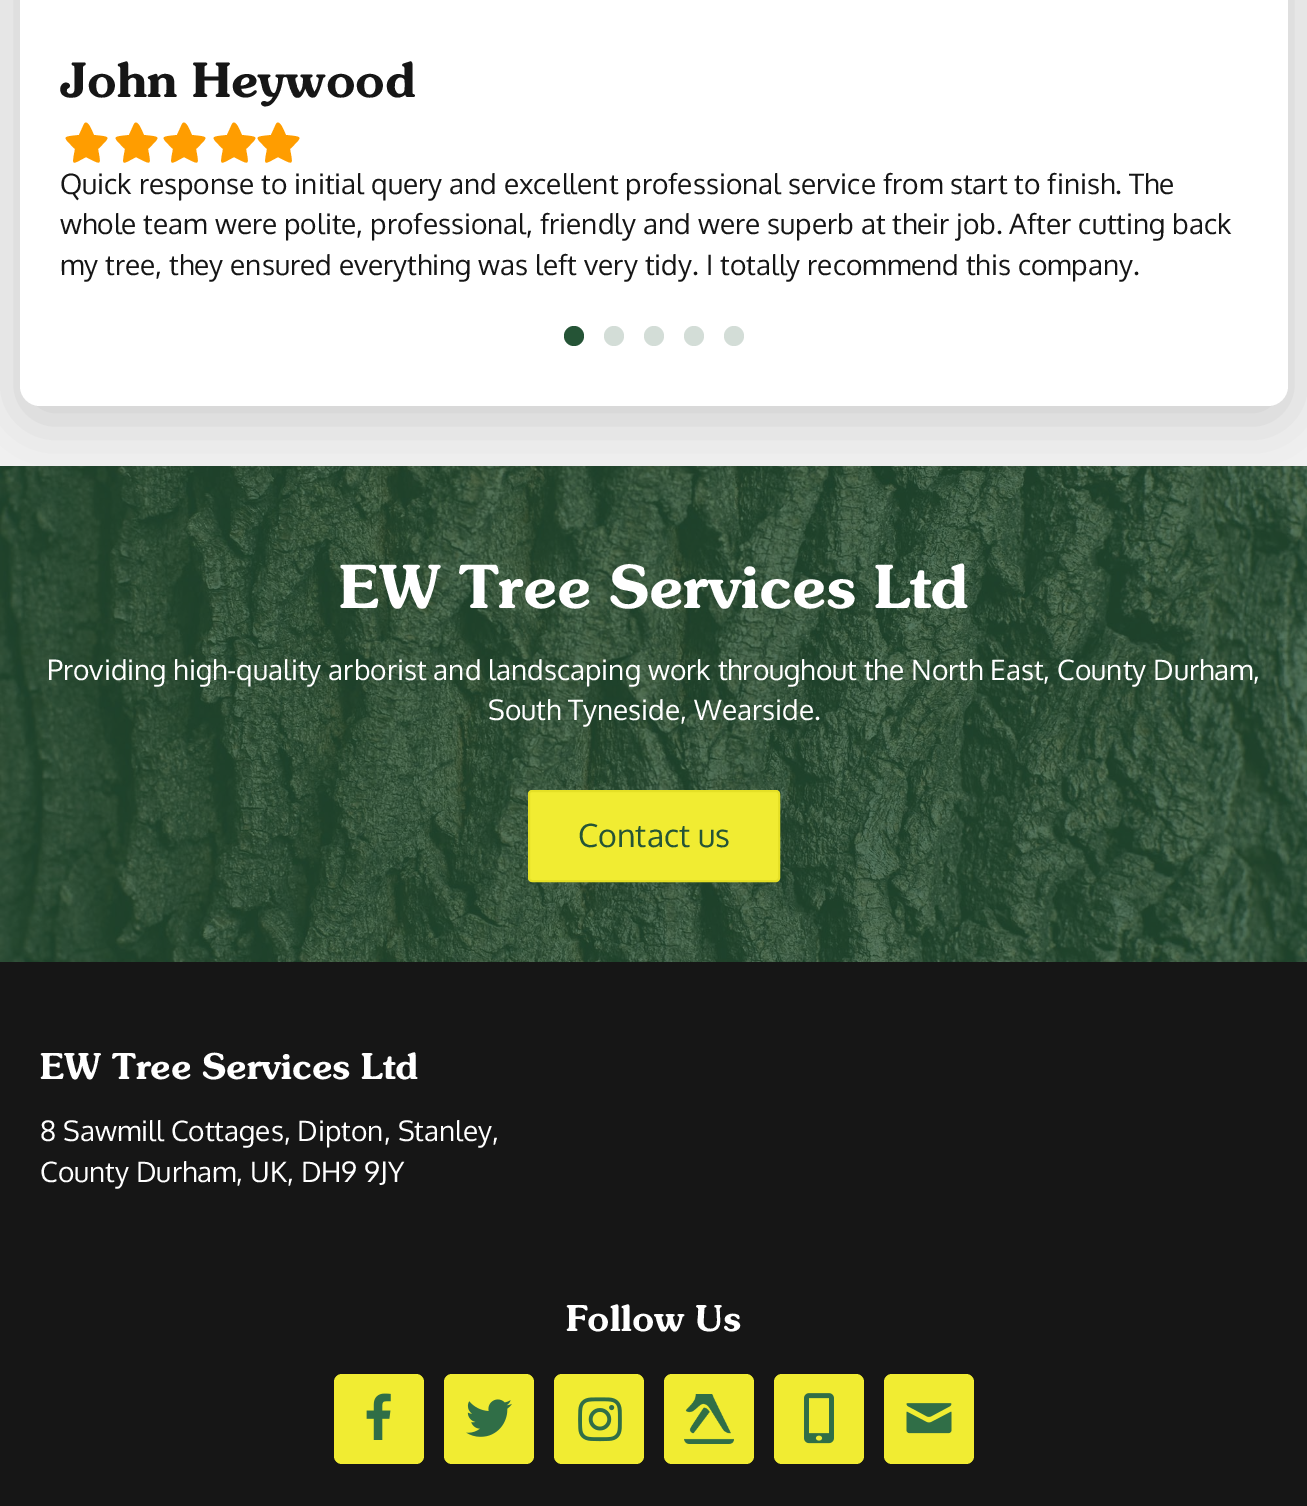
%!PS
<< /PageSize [1307 1506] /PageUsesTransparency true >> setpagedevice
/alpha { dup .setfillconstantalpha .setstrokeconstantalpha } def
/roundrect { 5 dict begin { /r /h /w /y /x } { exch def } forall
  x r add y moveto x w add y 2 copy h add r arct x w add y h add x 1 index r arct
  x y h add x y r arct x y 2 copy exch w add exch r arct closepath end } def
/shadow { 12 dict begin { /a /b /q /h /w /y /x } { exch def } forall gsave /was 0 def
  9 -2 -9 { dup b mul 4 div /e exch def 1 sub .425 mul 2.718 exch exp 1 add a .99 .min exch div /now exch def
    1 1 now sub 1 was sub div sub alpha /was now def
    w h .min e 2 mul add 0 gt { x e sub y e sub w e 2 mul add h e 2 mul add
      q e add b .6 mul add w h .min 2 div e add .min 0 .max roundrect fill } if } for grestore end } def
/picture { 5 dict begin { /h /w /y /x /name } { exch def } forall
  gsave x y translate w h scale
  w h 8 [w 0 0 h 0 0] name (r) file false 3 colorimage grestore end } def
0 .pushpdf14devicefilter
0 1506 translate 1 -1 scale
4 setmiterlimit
0.945 setgray
0 0 1307 1506 rectfill
0.086 setgray
20 -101 1268 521 20 27 0.15 shadow
1 setgray
20 -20 1268 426 20 roundrect fill
/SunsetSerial-Bold [48 0 0 -48 0 0] selectfont
0.086 setgray
60 97 moveto (John Heywood) show
1 0.616 0 setrgbcolor
newpath 84 124 moveto 88 118 93 134 94 135 curveto 111 137 111 136 98 149 curveto 101 166 102 165 86 157 curveto 71 165 72 166 75 149 curveto 62 136 62 137 79 135 curveto closepath fill
newpath 134 124 moveto 138 118 143 134 144 135 curveto 161 137 161 136 148 149 curveto 151 166 152 165 136 157 curveto 121 165 122 166 125 149 curveto 112 136 112 137 129 135 curveto closepath fill
newpath 182 124 moveto 186 118 191 134 192 135 curveto 209 137 209 136 196 149 curveto 199 166 200 165 184 157 curveto 169 165 170 166 173 149 curveto 160 136 160 137 177 135 curveto closepath fill
newpath 232 124 moveto 236 118 241 134 242 135 curveto 259 137 259 136 246 149 curveto 249 166 250 165 234 157 curveto 219 165 220 166 223 149 curveto 210 136 210 137 227 135 curveto closepath fill
newpath 276 124 moveto 280 118 285 134 286 135 curveto 303 137 303 136 290 149 curveto 293 166 294 165 278 157 curveto 263 165 264 166 267 149 curveto 254 136 254 137 271 135 curveto closepath fill
/Oxygen-Regular [28 0 0 -28 0 0] selectfont
0.086 setgray
60 194 moveto (Quick response to initial query and excellent professional service from start to finish. The) show
60 234 moveto (whole team were polite, professional, friendly and were superb at their job. After cutting back) show
60 275 moveto (my tree, they ensured everything was left very tidy. I totally recommend this company.) show
0.145 0.329 0.212 setrgbcolor
newpath 574 336 10 0 360 arc closepath fill
0.827 0.867 0.843 setrgbcolor
newpath 614 336 10 0 360 arc closepath fill
newpath 654 336 10 0 360 arc closepath fill
newpath 694 336 10 0 360 arc closepath fill
newpath 734 336 10 0 360 arc closepath fill
(img1.rgb) 0 466 1307 496 picture
/SunsetSerial-Bold [60 0 0 -60 0 0] selectfont
1 setgray
339 608 moveto (EW Tree Services Ltd) show
/Oxygen-Regular [28 0 0 -28 0 0] selectfont
47 680 moveto (Providing high-quality arborist and landscaping work throughout the North East, County Durham,) show
488 720 moveto (South Tyneside, Wearside.) show
0.945 0.925 0.196 setrgbcolor
529 791 250 90 3 roundrect gsave fill grestore
0.898 0.878 0.149 setrgbcolor
2 setlinewidth
stroke
/Oxygen-Regular [32 0 0 -32 0 0] selectfont
0.145 0.329 0.212 setrgbcolor
578 847 moveto (Contact us) show
0.086 setgray
0 962 1307 544 rectfill
/SunsetSerial-Bold [36 0 0 -36 0 0] selectfont
1 setgray
40 1079 moveto (EW Tree Services Ltd) show
/Oxygen-Regular [28 0 0 -28 0 0] selectfont
40 1141 moveto (8 Sawmill Cottages, Dipton, Stanley,) show
40 1182 moveto (County Durham, UK, DH9 9JY) show
/SunsetSerial-Bold [36 0 0 -36 0 0] selectfont
566 1331 moveto (Follow Us) show
0.945 0.925 0.196 setrgbcolor
334 1374 90 90 8 roundrect fill
(img2.rgb) 366 1393 25 47 picture
444 1374 90 90 8 roundrect fill
(img3.rgb) 466 1399 46 38 picture
554 1374 90 90 8 roundrect fill
(img4.rgb) 578 1397 44 45 picture
664 1374 90 90 8 roundrect fill
(img5.rgb) 684 1394 50 50 picture
774 1374 90 90 8 roundrect fill
(img6.rgb) 804 1393 30 51 picture
884 1374 90 90 8 roundrect fill
(img7.rgb) 906 1403 46 31 picture
.poppdf14devicefilter showpage
